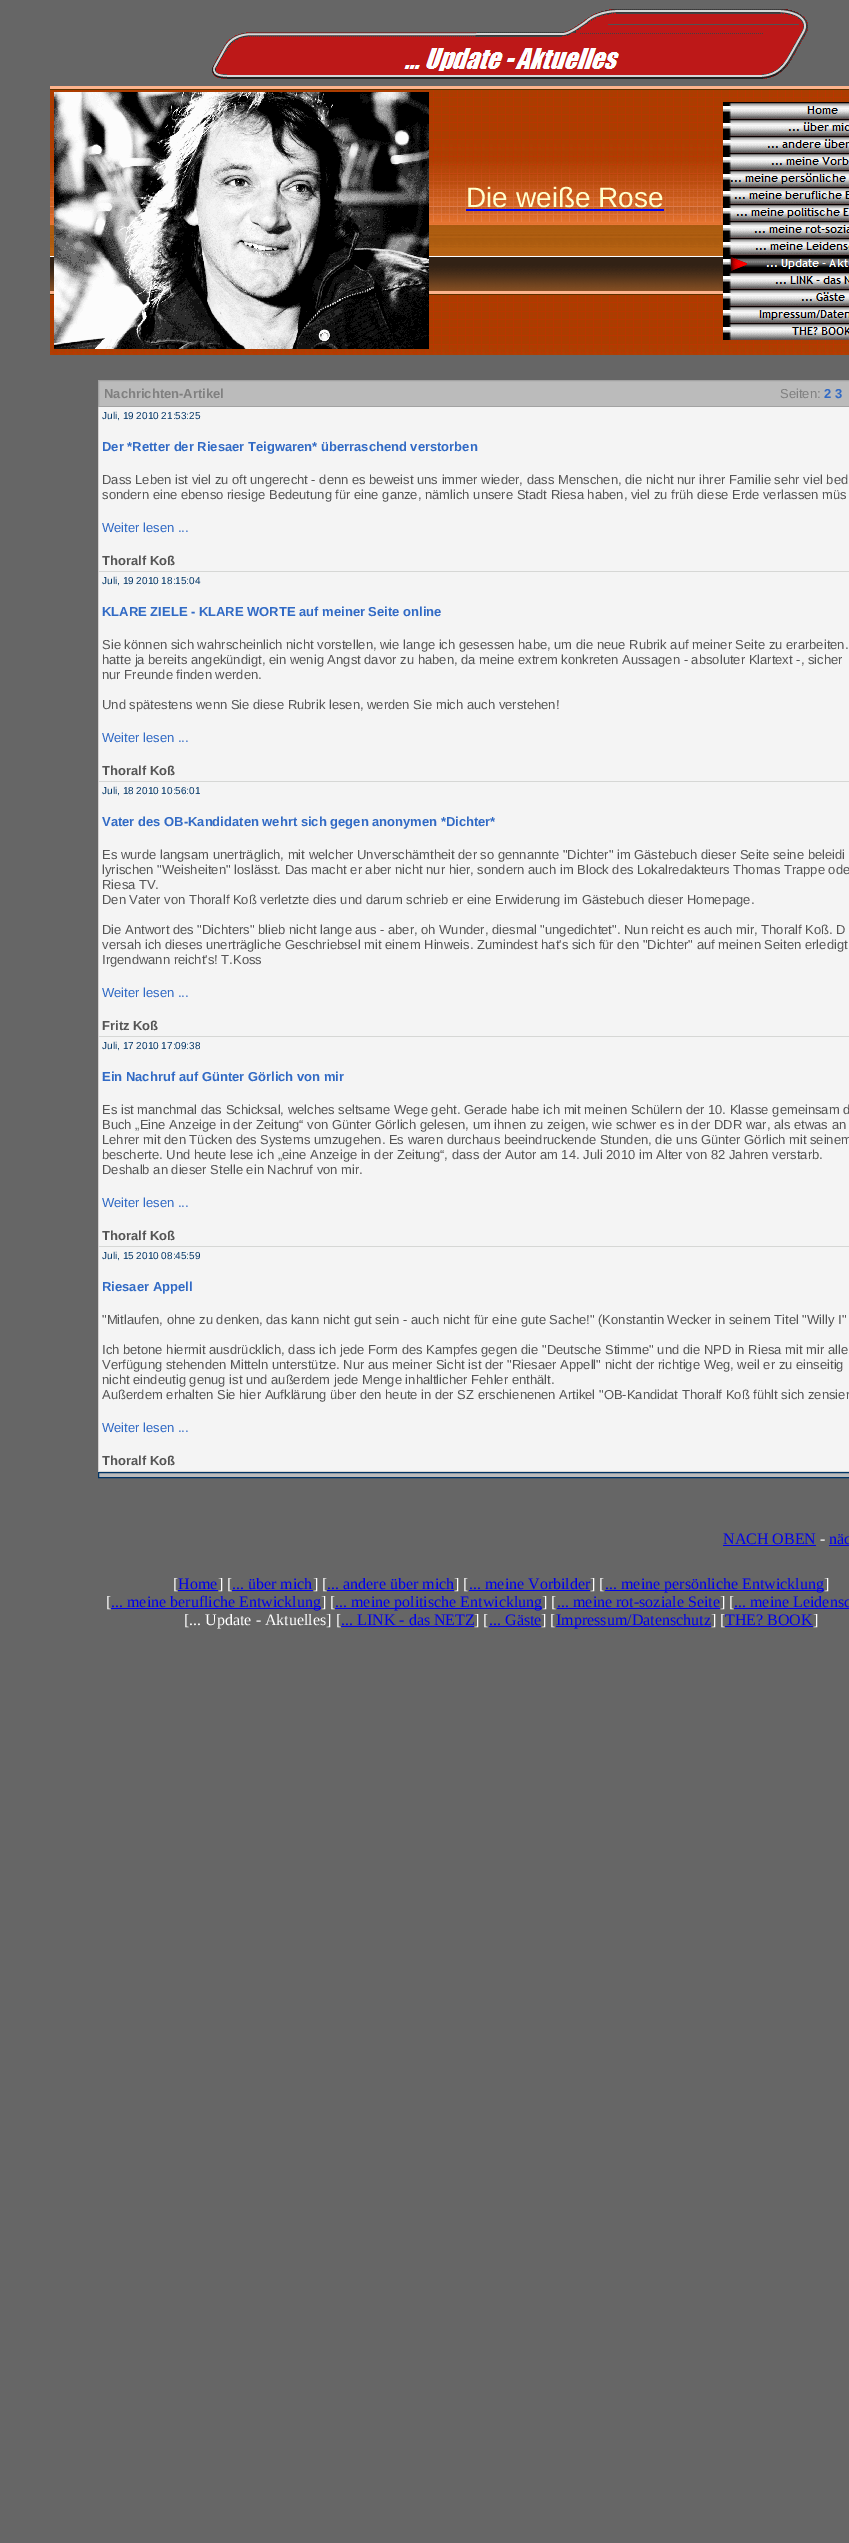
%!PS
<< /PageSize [849 2543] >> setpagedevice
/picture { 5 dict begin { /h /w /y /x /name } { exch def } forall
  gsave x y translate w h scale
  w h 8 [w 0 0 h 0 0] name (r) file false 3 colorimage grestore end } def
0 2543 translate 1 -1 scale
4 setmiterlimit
0.4 setgray
0 0 849 2543 rectfill
(img1.rgb) 212 9 596 70 picture
(img2.rgb) 50 86 799 269 picture
(img3.rgb) 54 92 375 257 picture
/LiberationSans-Regular [28 0 0 -28 0 0] selectfont
1 1 0.8 setrgbcolor
466 207 moveto (Die weiße Rose) show
0 0 0.933 setrgbcolor
466 209 198 2 rectfill
(img4.rgb) 723 102 126 17 picture
(img5.rgb) 723 119 126 17 picture
(img6.rgb) 723 136 126 17 picture
(img7.rgb) 723 153 126 17 picture
(img8.rgb) 723 170 126 17 picture
(img9.rgb) 723 187 126 17 picture
(img10.rgb) 723 204 126 17 picture
(img11.rgb) 723 221 126 17 picture
(img12.rgb) 723 238 126 17 picture
(img13.rgb) 723 255 126 17 picture
(img14.rgb) 723 272 126 17 picture
(img15.rgb) 723 289 126 17 picture
(img16.rgb) 723 306 126 17 picture
(img17.rgb) 723 323 126 17 picture
0.733 setgray
newpath 98.5 380.5 moveto 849.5 380.5 lineto 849.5 406.5 lineto 98.5 406.5 lineto closepath gsave fill grestore
0.635 setgray
stroke
/LiberationSans-Bold [13 0 0 -13 0 0] selectfont
0.502 setgray
104 398 moveto (Nachrichten-Artikel) show
/LiberationSans-Regular [13 0 0 -13 0 0] selectfont
780 398 moveto (Seiten:) show
/LiberationSans-Bold [13 0 0 -13 0 0] selectfont
0.192 0.416 0.773 setrgbcolor
824 398 moveto (2 3) show
0.957 setgray
99 407 750 1064 rectfill
0.827 0.816 0.816 setrgbcolor
98 407 1 1065 rectfill
0.839 0.843 0.835 setrgbcolor
99 571 750 1 rectfill
/LiberationSans-Regular [10 0 0 -10 0 0] selectfont
0 0.204 0.4 setrgbcolor
102 419 moveto (Juli, 19 2010 21:53:25) show
/LiberationSans-Bold [13 0 0 -13 0 0] selectfont
0.192 0.416 0.773 setrgbcolor
102 451 moveto (Der *Retter der Riesaer Teigwaren* überraschend verstorben) show
/LiberationSans-Regular [13 0 0 -13 0 0] selectfont
0.333 setgray
102 484 moveto (Dass Leben ist viel zu oft ungerecht - denn es beweist uns immer wieder, dass Menschen, die nicht nur ihrer Familie sehr viel bed) show
102 499 moveto (sondern eine ebenso riesige Bedeutung für eine ganze, nämlich unsere Stadt Riesa haben, viel zu früh diese Erde verlassen müs) show
0.192 0.416 0.773 setrgbcolor
102 532 moveto (Weiter lesen ...) show
/LiberationSans-Bold [13 0 0 -13 0 0] selectfont
0.333 setgray
102 565 moveto (Thoralf Koß) show
0.839 0.843 0.835 setrgbcolor
99 781 750 1 rectfill
/LiberationSans-Regular [10 0 0 -10 0 0] selectfont
0 0.204 0.4 setrgbcolor
102 584 moveto (Juli, 19 2010 18:15:04) show
/LiberationSans-Bold [13 0 0 -13 0 0] selectfont
0.192 0.416 0.773 setrgbcolor
102 616 moveto (KLARE ZIELE - KLARE WORTE auf meiner Seite online) show
/LiberationSans-Regular [13 0 0 -13 0 0] selectfont
0.333 setgray
102 649 moveto (Sie können sich wahrscheinlich nicht vorstellen, wie lange ich gesessen habe, um die neue Rubrik auf meiner Seite zu erarbeiten.) show
102 664 moveto (hatte ja bereits angekündigt, ein wenig Angst davor zu haben, da meine extrem konkreten Aussagen - absoluter Klartext -, sicher) show
102 679 moveto (nur Freunde finden werden.) show
102 709 moveto (Und spätestens wenn Sie diese Rubrik lesen, werden Sie mich auch verstehen!) show
0.192 0.416 0.773 setrgbcolor
102 742 moveto (Weiter lesen ...) show
/LiberationSans-Bold [13 0 0 -13 0 0] selectfont
0.333 setgray
102 775 moveto (Thoralf Koß) show
0.839 0.843 0.835 setrgbcolor
99 1036 750 1 rectfill
/LiberationSans-Regular [10 0 0 -10 0 0] selectfont
0 0.204 0.4 setrgbcolor
102 794 moveto (Juli, 18 2010 10:56:01) show
/LiberationSans-Bold [13 0 0 -13 0 0] selectfont
0.192 0.416 0.773 setrgbcolor
102 826 moveto (Vater des OB-Kandidaten wehrt sich gegen anonymen *Dichter*) show
/LiberationSans-Regular [13 0 0 -13 0 0] selectfont
0.333 setgray
102 859 moveto (Es wurde langsam unerträglich, mit welcher Unverschämtheit der so gennannte "Dichter" im Gästebuch dieser Seite seine beleidi) show
102 874 moveto (lyrischen "Weisheiten" loslässt. Das macht er aber nicht nur hier, sondern auch im Block des Lokalredakteurs Thomas Trappe ode) show
102 889 moveto (Riesa TV.) show
102 904 moveto (Den Vater von Thoralf Koß verletzte dies und darum schrieb er eine Erwiderung im Gästebuch dieser Homepage.) show
102 934 moveto (Die Antwort des "Dichters" blieb nicht lange aus - aber, oh Wunder, diesmal "ungedichtet". Nun reicht es auch mir, Thoralf Koß. D) show
102 949 moveto (versah ich dieses unerträgliche Geschriebsel mit einem Hinweis. Zumindest hat's sich für den "Dichter" auf meinen Seiten erledigt) show
102 964 moveto (Irgendwann reicht's! T.Koss) show
0.192 0.416 0.773 setrgbcolor
102 997 moveto (Weiter lesen ...) show
/LiberationSans-Bold [13 0 0 -13 0 0] selectfont
0.333 setgray
102 1030 moveto (Fritz Koß) show
0.839 0.843 0.835 setrgbcolor
99 1246 750 1 rectfill
/LiberationSans-Regular [10 0 0 -10 0 0] selectfont
0 0.204 0.4 setrgbcolor
102 1049 moveto (Juli, 17 2010 17:09:38) show
/LiberationSans-Bold [13 0 0 -13 0 0] selectfont
0.192 0.416 0.773 setrgbcolor
102 1081 moveto (Ein Nachruf auf Günter Görlich von mir) show
/LiberationSans-Regular [13 0 0 -13 0 0] selectfont
0.333 setgray
102 1114 moveto (Es ist manchmal das Schicksal, welches seltsame Wege geht. Gerade habe ich mit meinen Schülern der 10. Klasse gemeinsam d) show
102 1129 moveto (Buch „Eine Anzeige in der Zeitung“ von Günter Görlich gelesen, um ihnen zu zeigen, wie schwer es in der DDR war, als etwas an) show
102 1144 moveto (Lehrer mit den Tücken des Systems umzugehen. Es waren durchaus beeindruckende Stunden, die uns Günter Görlich mit seinem) show
102 1159 moveto (bescherte. Und heute lese ich „eine Anzeige in der Zeitung“, dass der Autor am 14. Juli 2010 im Alter von 82 Jahren verstarb.) show
102 1174 moveto (Deshalb an dieser Stelle ein Nachruf von mir.) show
0.192 0.416 0.773 setrgbcolor
102 1207 moveto (Weiter lesen ...) show
/LiberationSans-Bold [13 0 0 -13 0 0] selectfont
0.333 setgray
102 1240 moveto (Thoralf Koß) show
0.839 0.843 0.835 setrgbcolor
99 1471 750 1 rectfill
/LiberationSans-Regular [10 0 0 -10 0 0] selectfont
0 0.204 0.4 setrgbcolor
102 1259 moveto (Juli, 15 2010 08:45:59) show
/LiberationSans-Bold [13 0 0 -13 0 0] selectfont
0.192 0.416 0.773 setrgbcolor
102 1291 moveto (Riesaer Appell) show
/LiberationSans-Regular [13 0 0 -13 0 0] selectfont
0.333 setgray
102 1324 moveto ("Mitlaufen, ohne zu denken, das kann nicht gut sein - auch nicht für eine gute Sache!" \(Konstantin Wecker in seinem Titel "Willy I") show
102 1354 moveto (Ich betone hiermit ausdrücklich, dass ich jede Form des Kampfes gegen die "Deutsche Stimme" und die NPD in Riesa mit mir alle) show
102 1369 moveto (Verfügung stehenden Mitteln unterstütze. Nur aus meiner Sicht ist der "Riesaer Appell" nicht der richtige Weg, weil er zu einseitig) show
102 1384 moveto (nicht eindeutig genug ist und außerdem jede Menge inhaltlicher Fehler enthält.) show
102 1399 moveto (Außerdem erhalten Sie hier Aufklärung über den heute in der SZ erschienenen Artikel "OB-Kandidat Thoralf Koß fühlt sich zensier) show
0.192 0.416 0.773 setrgbcolor
102 1432 moveto (Weiter lesen ...) show
/LiberationSans-Bold [13 0 0 -13 0 0] selectfont
0.333 setgray
102 1465 moveto (Thoralf Koß) show
0.733 setgray
newpath 98.5 1472.5 moveto 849.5 1472.5 lineto 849.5 1477.5 lineto 98.5 1477.5 lineto closepath gsave fill grestore
0 0.204 0.4 setrgbcolor
stroke
/LiberationSerif-Regular [16 0 0 -16 0 0] selectfont
0 0 0.933 setrgbcolor
723 1544 moveto (NACH OBEN) show
723 1545 93 1 rectfill
1 setgray
820 1544 moveto (-) show
0 0 0.933 setrgbcolor
829 1544 moveto (näc) show
829 1545 20 1 rectfill
1 setgray
173 1589 moveto ([) show
0 0 0.933 setrgbcolor
178 1589 moveto (Home) show
178 1590 40 1 rectfill
1 setgray
218 1589 moveto (] [) show
0 0 0.933 setrgbcolor
232 1589 moveto (... über mich) show
232 1590 81 1 rectfill
1 setgray
313 1589 moveto (] [) show
0 0 0.933 setrgbcolor
327 1589 moveto (... andere über mich) show
327 1590 127 1 rectfill
1 setgray
454 1589 moveto (] [) show
0 0 0.933 setrgbcolor
469 1589 moveto (... meine Vorbilder) show
469 1590 121 1 rectfill
1 setgray
590 1589 moveto (] [) show
0 0 0.933 setrgbcolor
605 1590 219 1 rectfill
605 1589 moveto (... meine persönliche Entwicklung) show
1 setgray
824 1589 moveto (]) show
106 1607 moveto ([) show
0 0 0.933 setrgbcolor
111 1608 210 1 rectfill
111 1607 moveto (... meine berufliche Entwicklung) show
1 setgray
321 1607 moveto (] [) show
0 0 0.933 setrgbcolor
335 1608 207 1 rectfill
335 1607 moveto (... meine politische Entwicklung) show
1 setgray
542 1607 moveto (] [) show
0 0 0.933 setrgbcolor
557 1607 moveto (... meine rot-soziale Seite) show
557 1608 163 1 rectfill
1 setgray
720 1607 moveto (] [) show
0 0 0.933 setrgbcolor
734 1607 moveto (... meine Leidensc) show
734 1608 115 1 rectfill
1 setgray
184 1625 moveto ([... Update - Aktuelles] [) show
0 0 0.933 setrgbcolor
341 1625 moveto (... LINK - das NETZ) show
341 1626 133 1 rectfill
1 setgray
474 1625 moveto (] [) show
0 0 0.933 setrgbcolor
489 1625 moveto (... Gäste) show
489 1626 52 1 rectfill
1 setgray
541 1625 moveto (] [) show
0 0 0.933 setrgbcolor
556 1626 155 1 rectfill
556 1625 moveto (Impressum/Datenschutz) show
1 setgray
711 1625 moveto (] [) show
0 0 0.933 setrgbcolor
725 1625 moveto (THE? BOOK) show
725 1626 88 1 rectfill
1 setgray
813 1625 moveto (]) show
showpage
